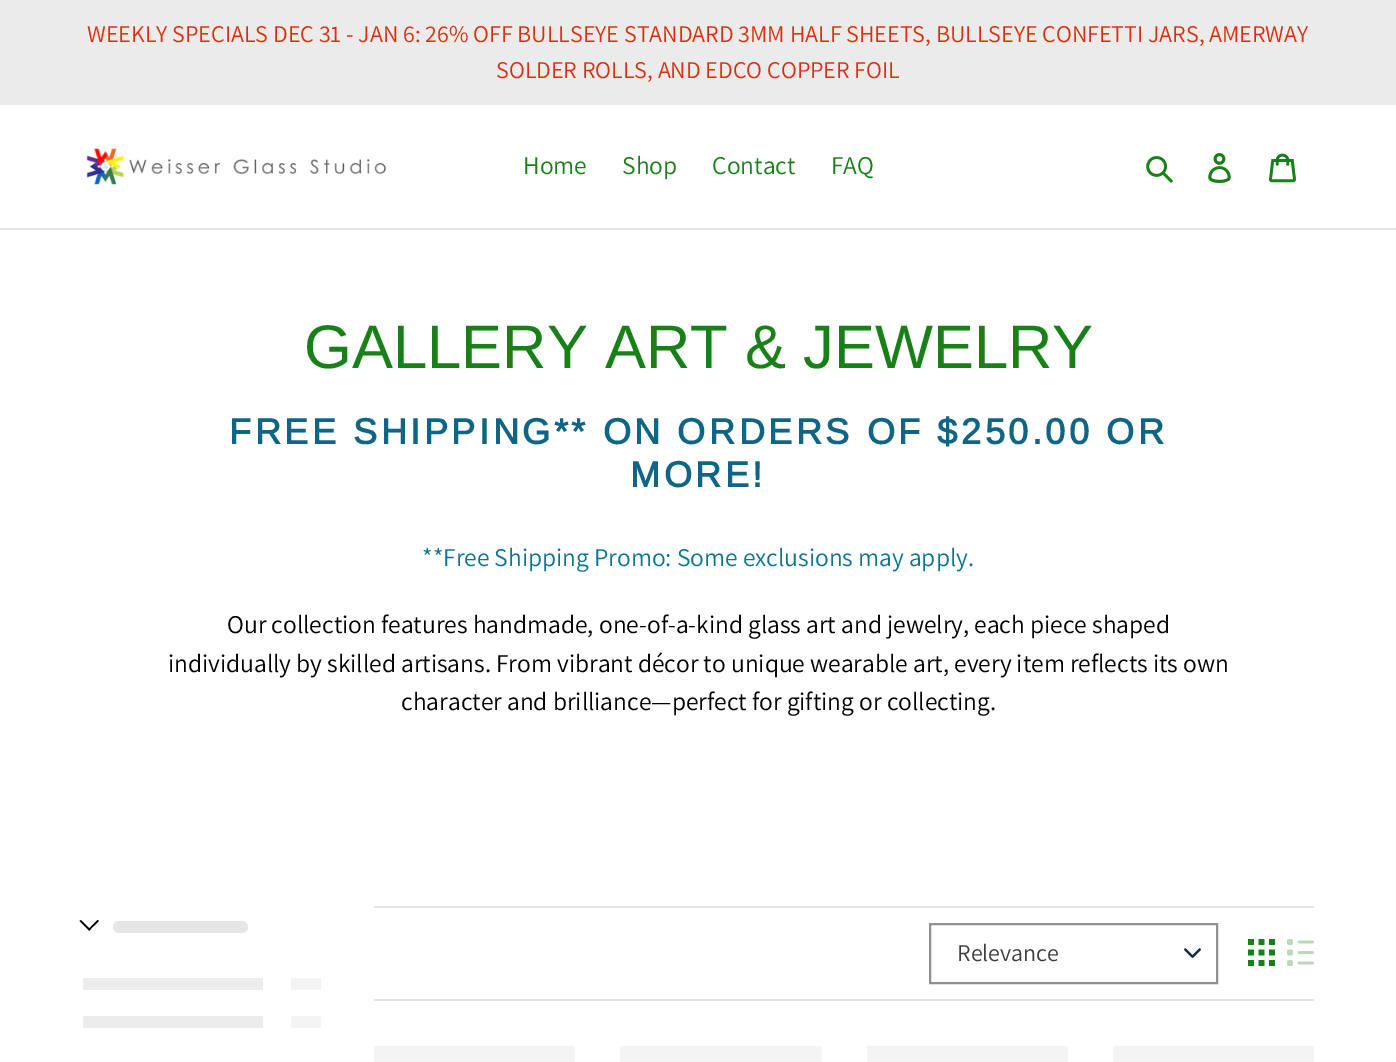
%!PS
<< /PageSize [1396 1062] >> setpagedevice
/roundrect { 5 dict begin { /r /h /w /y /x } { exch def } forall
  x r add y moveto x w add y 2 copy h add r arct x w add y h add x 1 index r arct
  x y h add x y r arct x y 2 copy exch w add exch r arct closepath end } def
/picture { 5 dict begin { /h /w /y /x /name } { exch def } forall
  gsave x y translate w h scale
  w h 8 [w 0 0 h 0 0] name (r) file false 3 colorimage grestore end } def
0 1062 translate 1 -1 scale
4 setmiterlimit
1 setgray
0 0 1396 1062 rectfill
0.922 setgray
0 0 1396 105 rectfill
/Assistant-Regular [24 0 0 -24 0 0] selectfont
0.855 0.184 0.047 setrgbcolor
87 42 moveto (WEEKLY SPECIALS DEC 31 - JAN 6: 26% OFF BULLSEYE STANDARD 3MM HALF SHEETS, BULLSEYE CONFETTI JARS, AMERWAY) show
496 78 moveto (SOLDER ROLLS, AND EDCO COPPER FOIL) show
0.894 setgray
0 228 1396 2 rectfill
(img1.rgb) 83 146 303 40 picture
/Assistant-Regular [25.5 0 0 -25.5 0 0] selectfont
0.09 0.502 0.09 setrgbcolor
523 174 moveto (Home) show
622 174 moveto (Shop) show
712 174 moveto (Contact) show
831 174 moveto (FAQ) show
(img2.rgb) 1146 156 27 27 picture
(img3.rgb) 1208 153 23 30 picture
(img4.rgb) 1269 153 27 30 picture
/Arimo-Regular [61.5 0 0 -61.5 0 0] selectfont
304 368 moveto (GALLERY ART & JEWELRY) show
/Arimo-Bold [36 0 0 -36 0 0] selectfont
0.059 0.396 0.525 setrgbcolor
229 444 moveto 3.6 0 (FREE SHIPPING** ON ORDERS OF $250.00 OR) ashow
630 487 moveto 3.6 0 (MORE!) ashow
/Assistant-Regular [25.5 0 0 -25.5 0 0] selectfont
0.039 0.455 0.58 setrgbcolor
422 566 moveto (**Free Shipping Promo: Some exclusions may apply.) show
0 setgray
227 633 moveto (Our collection features handmade, one-of-a-kind glass art and jewelry, each piece shaped) show
168 672 moveto (individually by skilled artisans. From vibrant décor to unique wearable art, every item reflects its own) show
401 710 moveto (character and brilliance—perfect for gifting or collecting.) show
newpath 97.5 920 moveto 99 921 lineto 89 930.5 lineto 88 929.5 lineto closepath fill
newpath 81 920 moveto 90.5 929.5 lineto 89 930.5 lineto 79.5 921 lineto closepath fill
0.902 setgray
113 921 135 12 6 roundrect fill
0.925 setgray
83 978 180 12 rectfill
0.957 setgray
291 978 30 12 rectfill
0.925 setgray
83 1016 180 12 rectfill
0.957 setgray
291 1016 30 12 rectfill
0.902 setgray
374 906 940 2 rectfill
374 999 940 2 rectfill
(img5.rgb) 1184 948 17 10 picture
0.565 setgray
2 setlinewidth
930 924 287 59 rectstroke
/Assistant-Regular [24 0 0 -24 0 0] selectfont
0.239 setgray
957 961 moveto (Relevance) show
(img6.rgb) 1248 939 27 27 picture
(img7.rgb) 1287 939 27 27 picture
0.957 setgray
374 1046 201 16 rectfill
620 1046 202 16 rectfill
867 1046 201 16 rectfill
1113 1046 201 16 rectfill
showpage
